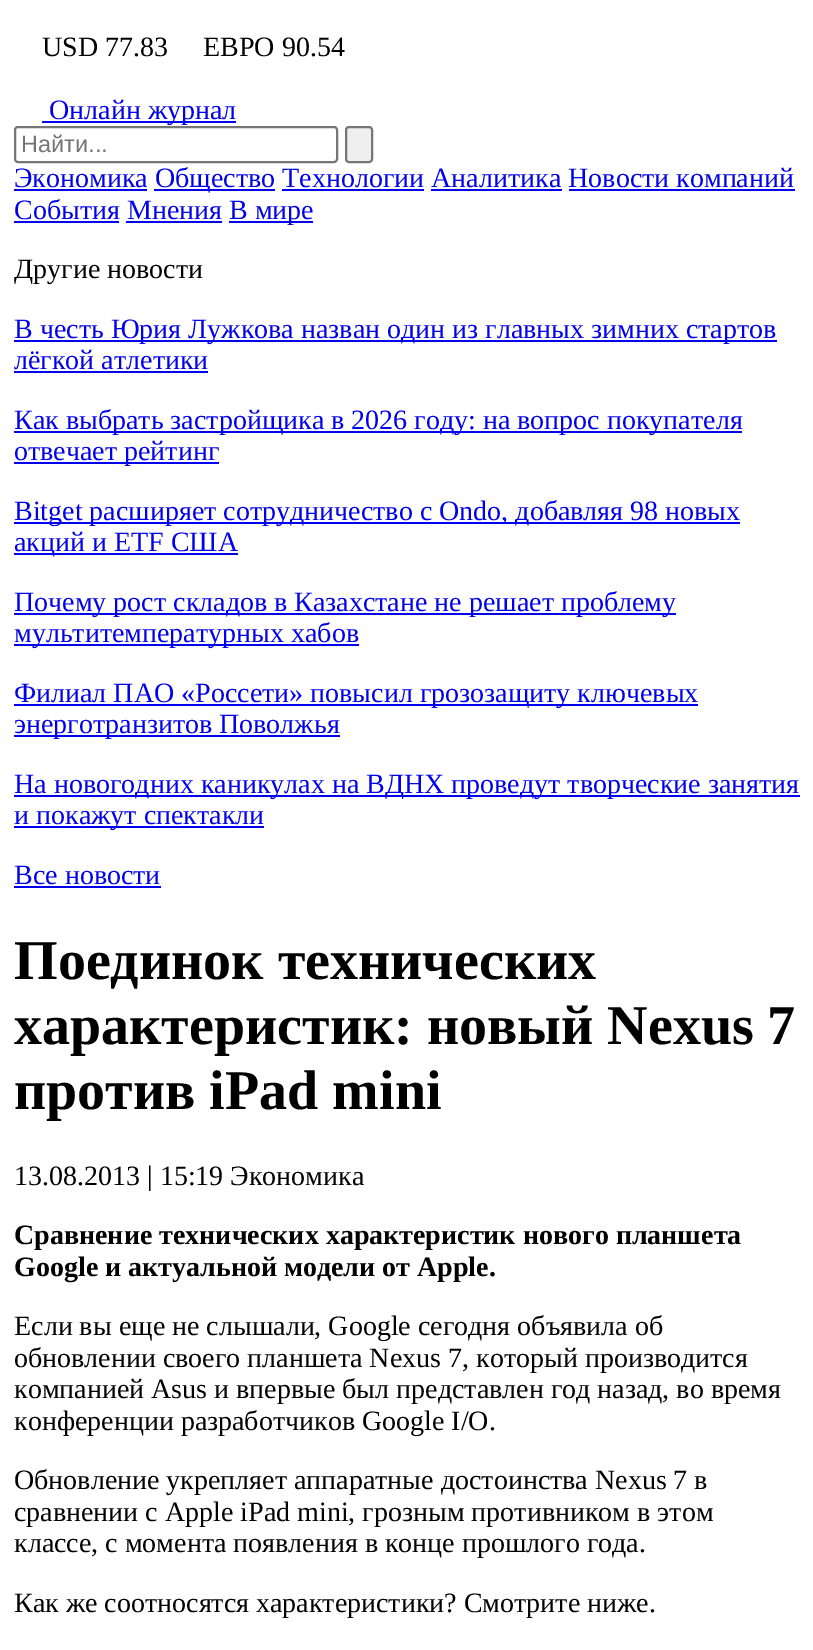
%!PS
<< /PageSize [813 1650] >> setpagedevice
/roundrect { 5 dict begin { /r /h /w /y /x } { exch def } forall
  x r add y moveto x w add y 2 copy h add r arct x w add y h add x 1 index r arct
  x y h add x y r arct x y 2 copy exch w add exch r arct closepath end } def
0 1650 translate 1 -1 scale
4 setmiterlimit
1 setgray
0 0 813 1650 rectfill
/LiberationSerif-Regular [28 0 0 -28 0 0] selectfont
0 setgray
42 56 moveto (USD 77.83) show
203 56 moveto (ЕВРО 90.54) show
0 0 0.933 setrgbcolor
42 121 194 2 rectfill
49 119 moveto (Онлайн журнал) show
0.463 setgray
2 setlinewidth
15 127 322 35 3 roundrect stroke
/LiberationSans-Regular [23.5 0 0 -23.5 0 0] selectfont
0.459 setgray
21 152 moveto (Найти...) show
0.937 setgray
346 127 26 35 3 roundrect gsave fill grestore
0.463 setgray
stroke
/LiberationSerif-Regular [28 0 0 -28 0 0] selectfont
0 0 0.933 setrgbcolor
14 187 moveto (Экономика) show
14 189 133 2 rectfill
154 189 121 2 rectfill
155 187 moveto (Общество Технологии Аналитика Новости компаний) show
282 189 142 2 rectfill
431 189 131 2 rectfill
569 189 226 2 rectfill
14 219 moveto (События Мнения) show
14 221 105 2 rectfill
229 221 84 2 rectfill
229 219 moveto (В мире) show
126 221 96 2 rectfill
0 setgray
14 278 moveto (Другие новости) show
0 0 0.933 setrgbcolor
14 340 763 2 rectfill
14 338 moveto (В честь Юрия Лужкова назван один из главных зимних стартов) show
14 369 moveto (лёгкой атлетики) show
14 371 194 2 rectfill
14 431 728 2 rectfill
14 429 moveto (Как выбрать застройщика в 2026 году: на вопрос покупателя) show
14 462 205 2 rectfill
14 460 moveto (отвечает рейтинг) show
14 522 726 2 rectfill
14 520 moveto (Bitget расширяет сотрудничество с Ondo, добавляя 98 новых) show
14 553 224 2 rectfill
14 551 moveto (акций и ETF США) show
14 613 662 2 rectfill
14 611 moveto (Почему рост складов в Казахстане не решает проблему) show
14 644 345 2 rectfill
14 642 moveto (мультитемпературных хабов) show
14 704 684 2 rectfill
14 702 moveto (Филиал ПАО «Россети» повысил грозозащиту ключевых) show
14 735 326 2 rectfill
14 733 moveto (энерготранзитов Поволжья) show
14 795 786 2 rectfill
14 793 moveto (На новогодних каникулах на ВДНХ проведут творческие занятия) show
14 826 250 2 rectfill
14 824 moveto (и покажут спектакли) show
14 884 moveto (Все новости) show
14 886 147 2 rectfill
/LiberationSerif-Bold [56 0 0 -56 0 0] selectfont
0 setgray
14 979 moveto (Поединок технических) show
14 1044 moveto (характеристик: новый Nexus 7) show
14 1109 moveto (против iPad mini) show
/LiberationSerif-Regular [28 0 0 -28 0 0] selectfont
14 1185 moveto (13.08.2013 | 15:19 Экономика) show
/LiberationSerif-Bold [28 0 0 -28 0 0] selectfont
14 1244 moveto (Сравнение технических характеристик нового планшета) show
14 1276 moveto (Google и актуальной модели от Apple.) show
/LiberationSerif-Regular [28 0 0 -28 0 0] selectfont
14 1335 moveto (Если вы еще не слышали, Google сегодня объявила об) show
14 1367 moveto (обновлении своего планшета Nexus 7, который производится) show
14 1398 moveto (компанией Asus и впервые был представлен год назад, во время) show
14 1430 moveto (конференции разработчиков Google I/O.) show
14 1489 moveto (Обновление укрепляет аппаратные достоинства Nexus 7 в) show
14 1521 moveto (сравнении с Apple iPad mini, грозным противником в этом) show
14 1552 moveto (классе, с момента появления в конце прошлого года.) show
14 1612 moveto (Как же соотносятся характеристики? Смотрите ниже.) show
showpage
